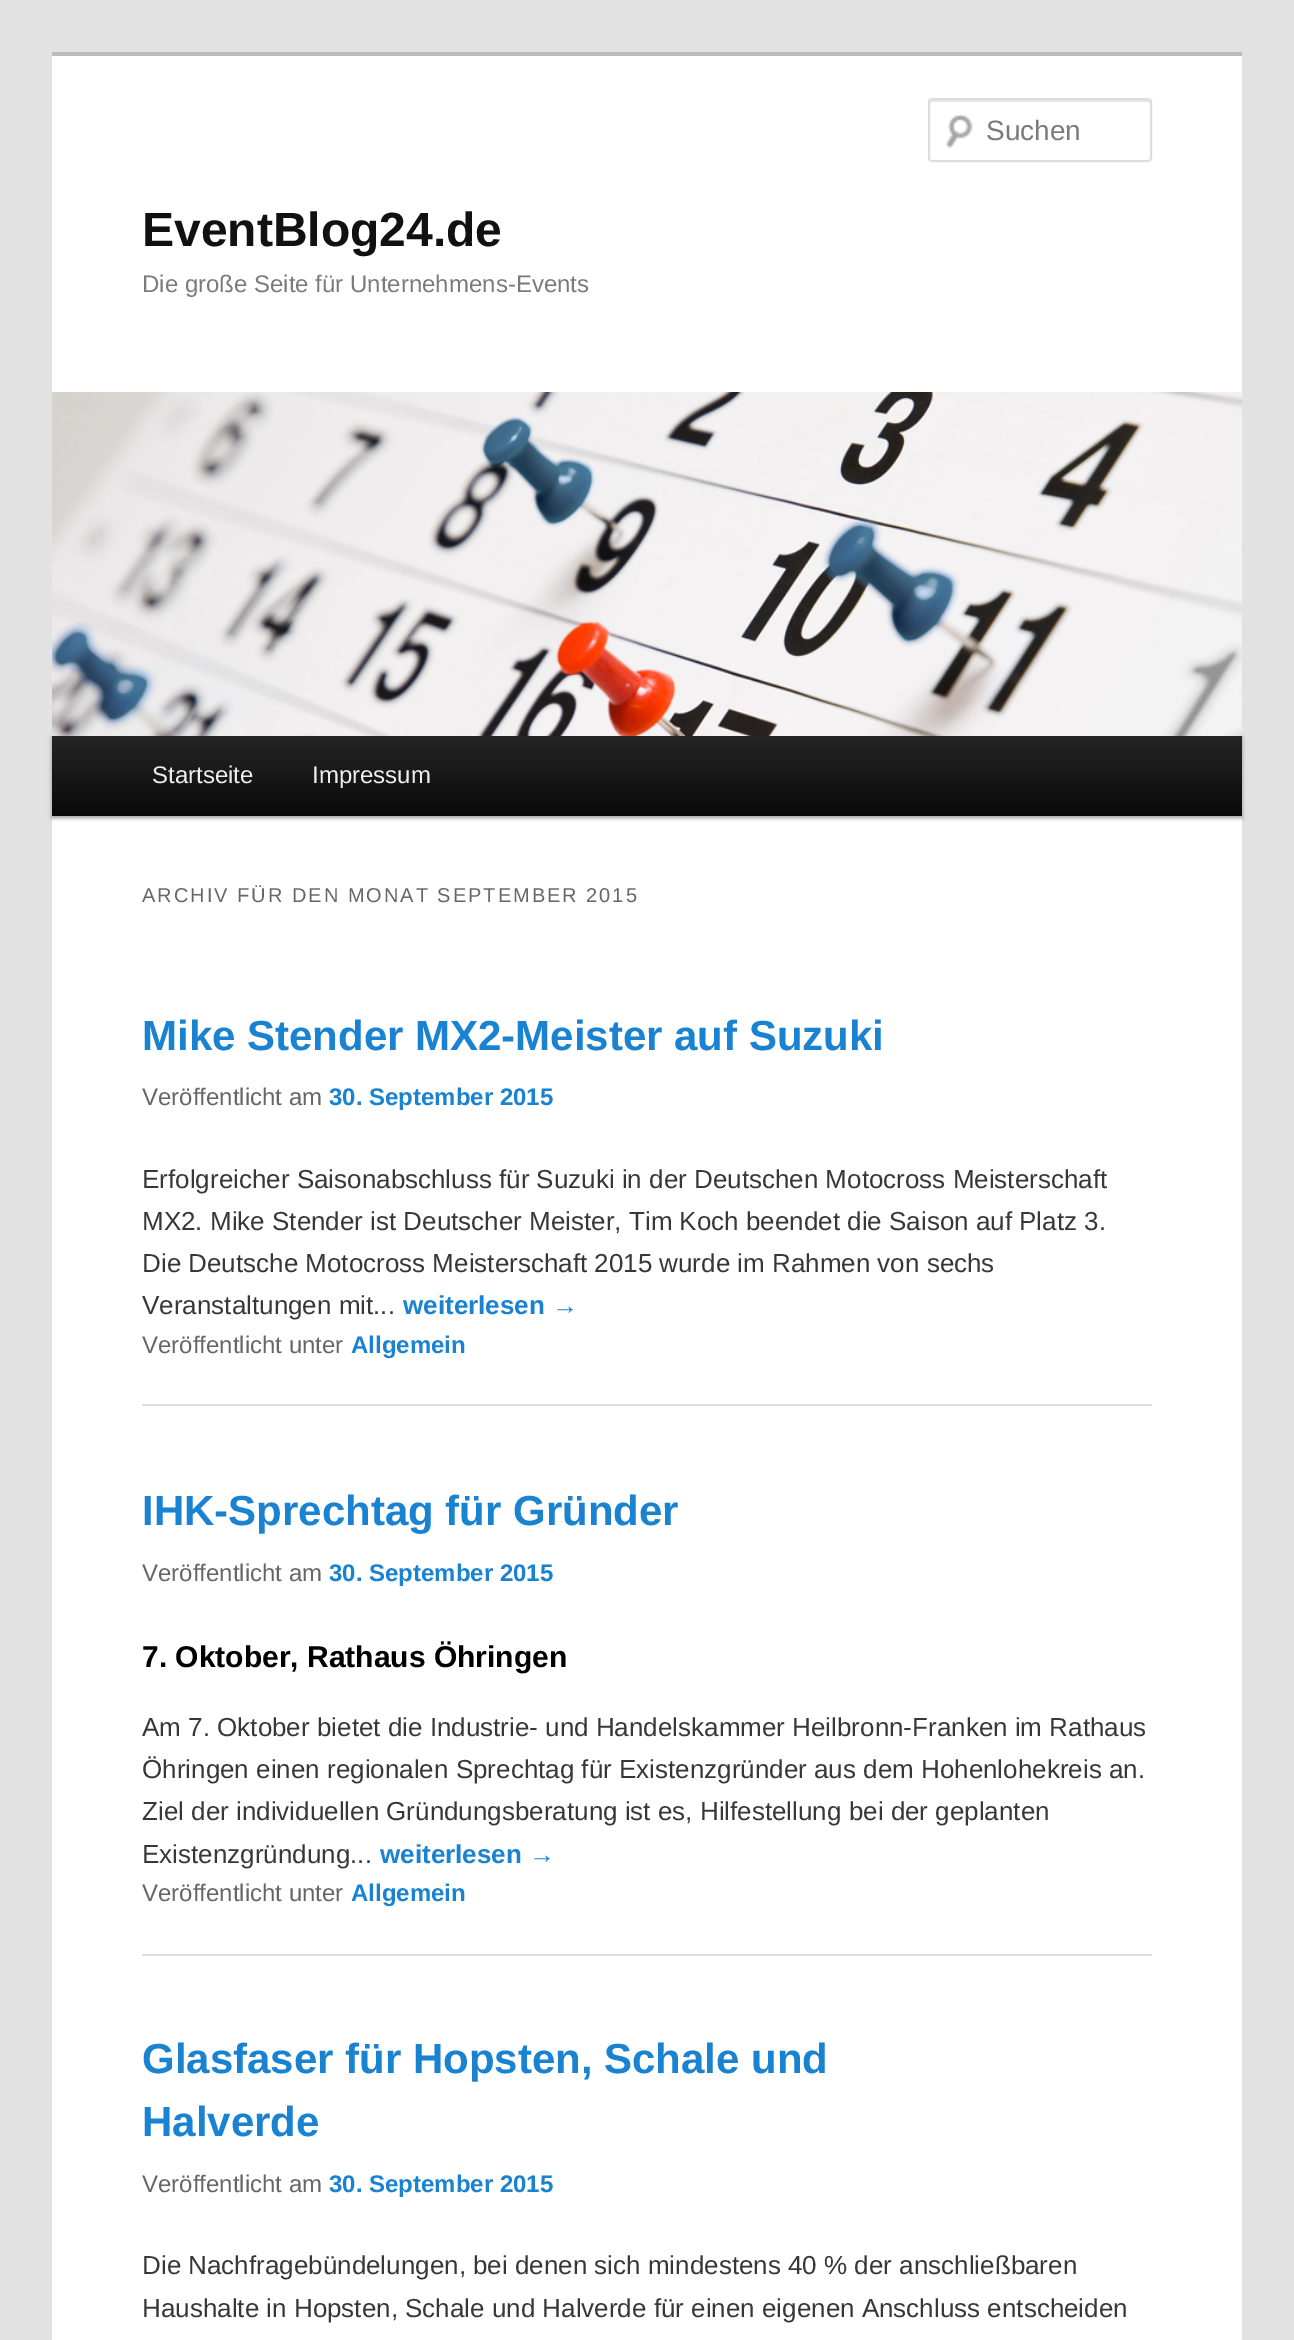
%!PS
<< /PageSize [1294 2340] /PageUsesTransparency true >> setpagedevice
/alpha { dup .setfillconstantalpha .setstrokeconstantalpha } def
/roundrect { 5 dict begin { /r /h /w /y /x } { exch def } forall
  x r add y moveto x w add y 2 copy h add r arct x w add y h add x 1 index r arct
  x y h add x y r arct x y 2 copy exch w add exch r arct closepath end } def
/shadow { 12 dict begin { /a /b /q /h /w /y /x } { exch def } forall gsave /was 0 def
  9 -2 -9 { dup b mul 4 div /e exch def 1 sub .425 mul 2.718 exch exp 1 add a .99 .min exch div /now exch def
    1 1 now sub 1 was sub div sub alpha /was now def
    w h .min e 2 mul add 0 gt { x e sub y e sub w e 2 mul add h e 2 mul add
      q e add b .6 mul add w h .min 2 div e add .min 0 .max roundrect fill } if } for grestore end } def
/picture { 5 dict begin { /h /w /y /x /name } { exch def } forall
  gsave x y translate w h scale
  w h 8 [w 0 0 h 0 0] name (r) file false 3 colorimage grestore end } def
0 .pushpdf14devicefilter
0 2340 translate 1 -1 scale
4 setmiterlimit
0.886 setgray
0 0 1294 2340 rectfill
1 setgray
52 56 1190 2284 rectfill
0.733 setgray
52 52 1190 4 rectfill
(img1.rgb) 945 114 28 35 picture
0.902 setgray
newpath 932 102 moveto 1148 102 lineto 1149 102 1150 103 1150 104 curveto 1150 102 lineto 1150 101 1149 100 1148 100 curveto 932 100 lineto 931 100 930 101 930 102 curveto 930 104 lineto 930 103 931 102 932 102 curveto closepath fill
0.867 setgray
2 setlinewidth
929 99 222 62 3 roundrect stroke
/LiberationSans-Regular [28 0 0 -28 0 0] selectfont
0.478 setgray
986 140 moveto (Suchen) show
/LiberationSans-Bold [48 0 0 -48 0 0] selectfont
0.067 setgray
142 246 moveto (EventBlog24.de) show
/LiberationSans-Regular [24 0 0 -24 0 0] selectfont
0.478 setgray
142 292 moveto (Die große Seite für Unternehmens-Events) show
0 setgray
52 738 1190 80 0 2 0.4 shadow
(img2.rgb) 52 392 1190 344 picture
gsave newpath 52 736 moveto 1242 736 lineto 1242 816 lineto 52 816 lineto closepath clip newpath
<< /ShadingType 2 /ColorSpace /DeviceRGB /Coords [647 736 647 816] /Extend [true true] /Function << /FunctionType 2 /Domain [0 1] /C0 [0.145 0.145 0.145] /C1 [0.039 0.039 0.039] /N 1 >> >> shfill grestore
0.933 setgray
152 783 moveto (Startseite) show
312 783 moveto (Impressum) show
/LiberationSans-Regular [20 0 0 -20 0 0] selectfont
0.4 setgray
142 902 moveto 2 0 (ARCHIV FÜR DEN MONAT SEPTEMBER 2015) ashow
0.867 setgray
142 1404 1010 2 rectfill
/LiberationSans-Bold [42 0 0 -42 0 0] selectfont
0.098 0.51 0.82 setrgbcolor
142 1050 moveto (Mike Stender MX2-Meister auf Suzuki) show
/LiberationSans-Regular [24 0 0 -24 0 0] selectfont
0.4 setgray
142 1105 moveto (Veröffentlicht am) show
/LiberationSans-Bold [24 0 0 -24 0 0] selectfont
0.098 0.51 0.82 setrgbcolor
329 1105 moveto (30. September 2015) show
/LiberationSans-Regular [26 0 0 -26 0 0] selectfont
0.216 setgray
142 1188 moveto (Erfolgreicher Saisonabschluss für Suzuki in der Deutschen Motocross Meisterschaft) show
142 1230 moveto (MX2. Mike Stender ist Deutscher Meister, Tim Koch beendet die Saison auf Platz 3.) show
142 1272 moveto (Die Deutsche Motocross Meisterschaft 2015 wurde im Rahmen von sechs) show
142 1314 moveto (Veranstaltungen mit...) show
/LiberationSans-Bold [26 0 0 -26 0 0] selectfont
0.098 0.51 0.82 setrgbcolor
403 1314 moveto (weiterlesen →) show
/LiberationSans-Regular [24 0 0 -24 0 0] selectfont
0.4 setgray
142 1353 moveto (Veröffentlicht unter) show
/LiberationSans-Bold [24 0 0 -24 0 0] selectfont
0.098 0.51 0.82 setrgbcolor
351 1353 moveto (Allgemein) show
0.867 setgray
142 1954 1010 2 rectfill
/LiberationSans-Bold [42 0 0 -42 0 0] selectfont
0.098 0.51 0.82 setrgbcolor
142 1525 moveto (IHK-Sprechtag für Gründer) show
/LiberationSans-Regular [24 0 0 -24 0 0] selectfont
0.4 setgray
142 1581 moveto (Veröffentlicht am) show
/LiberationSans-Bold [24 0 0 -24 0 0] selectfont
0.098 0.51 0.82 setrgbcolor
329 1581 moveto (30. September 2015) show
/LiberationSans-Bold [30 0 0 -30 0 0] selectfont
0 setgray
142 1667 moveto (7. Oktober, Rathaus Öhringen) show
/LiberationSans-Regular [26 0 0 -26 0 0] selectfont
0.216 setgray
142 1736 moveto (Am 7. Oktober bietet die Industrie- und Handelskammer Heilbronn-Franken im Rathaus) show
142 1778 moveto (Öhringen einen regionalen Sprechtag für Existenzgründer aus dem Hohenlohekreis an.) show
142 1820 moveto (Ziel der individuellen Gründungsberatung ist es, Hilfestellung bei der geplanten) show
142 1863 moveto (Existenzgründung...) show
/LiberationSans-Bold [26 0 0 -26 0 0] selectfont
0.098 0.51 0.82 setrgbcolor
380 1863 moveto (weiterlesen →) show
/LiberationSans-Regular [24 0 0 -24 0 0] selectfont
0.4 setgray
142 1901 moveto (Veröffentlicht unter) show
/LiberationSans-Bold [24 0 0 -24 0 0] selectfont
0.098 0.51 0.82 setrgbcolor
351 1901 moveto (Allgemein) show
/LiberationSans-Bold [42 0 0 -42 0 0] selectfont
142 2073 moveto (Glasfaser für Hopsten, Schale und) show
142 2136 moveto (Halverde) show
/LiberationSans-Regular [24 0 0 -24 0 0] selectfont
0.4 setgray
142 2192 moveto (Veröffentlicht am) show
/LiberationSans-Bold [24 0 0 -24 0 0] selectfont
0.098 0.51 0.82 setrgbcolor
329 2192 moveto (30. September 2015) show
/LiberationSans-Regular [26 0 0 -26 0 0] selectfont
0.216 setgray
142 2274 moveto (Die Nachfragebündelungen, bei denen sich mindestens 40 % der anschließbaren) show
142 2317 moveto (Haushalte in Hopsten, Schale und Halverde für einen eigenen Anschluss entscheiden) show
.poppdf14devicefilter showpage
